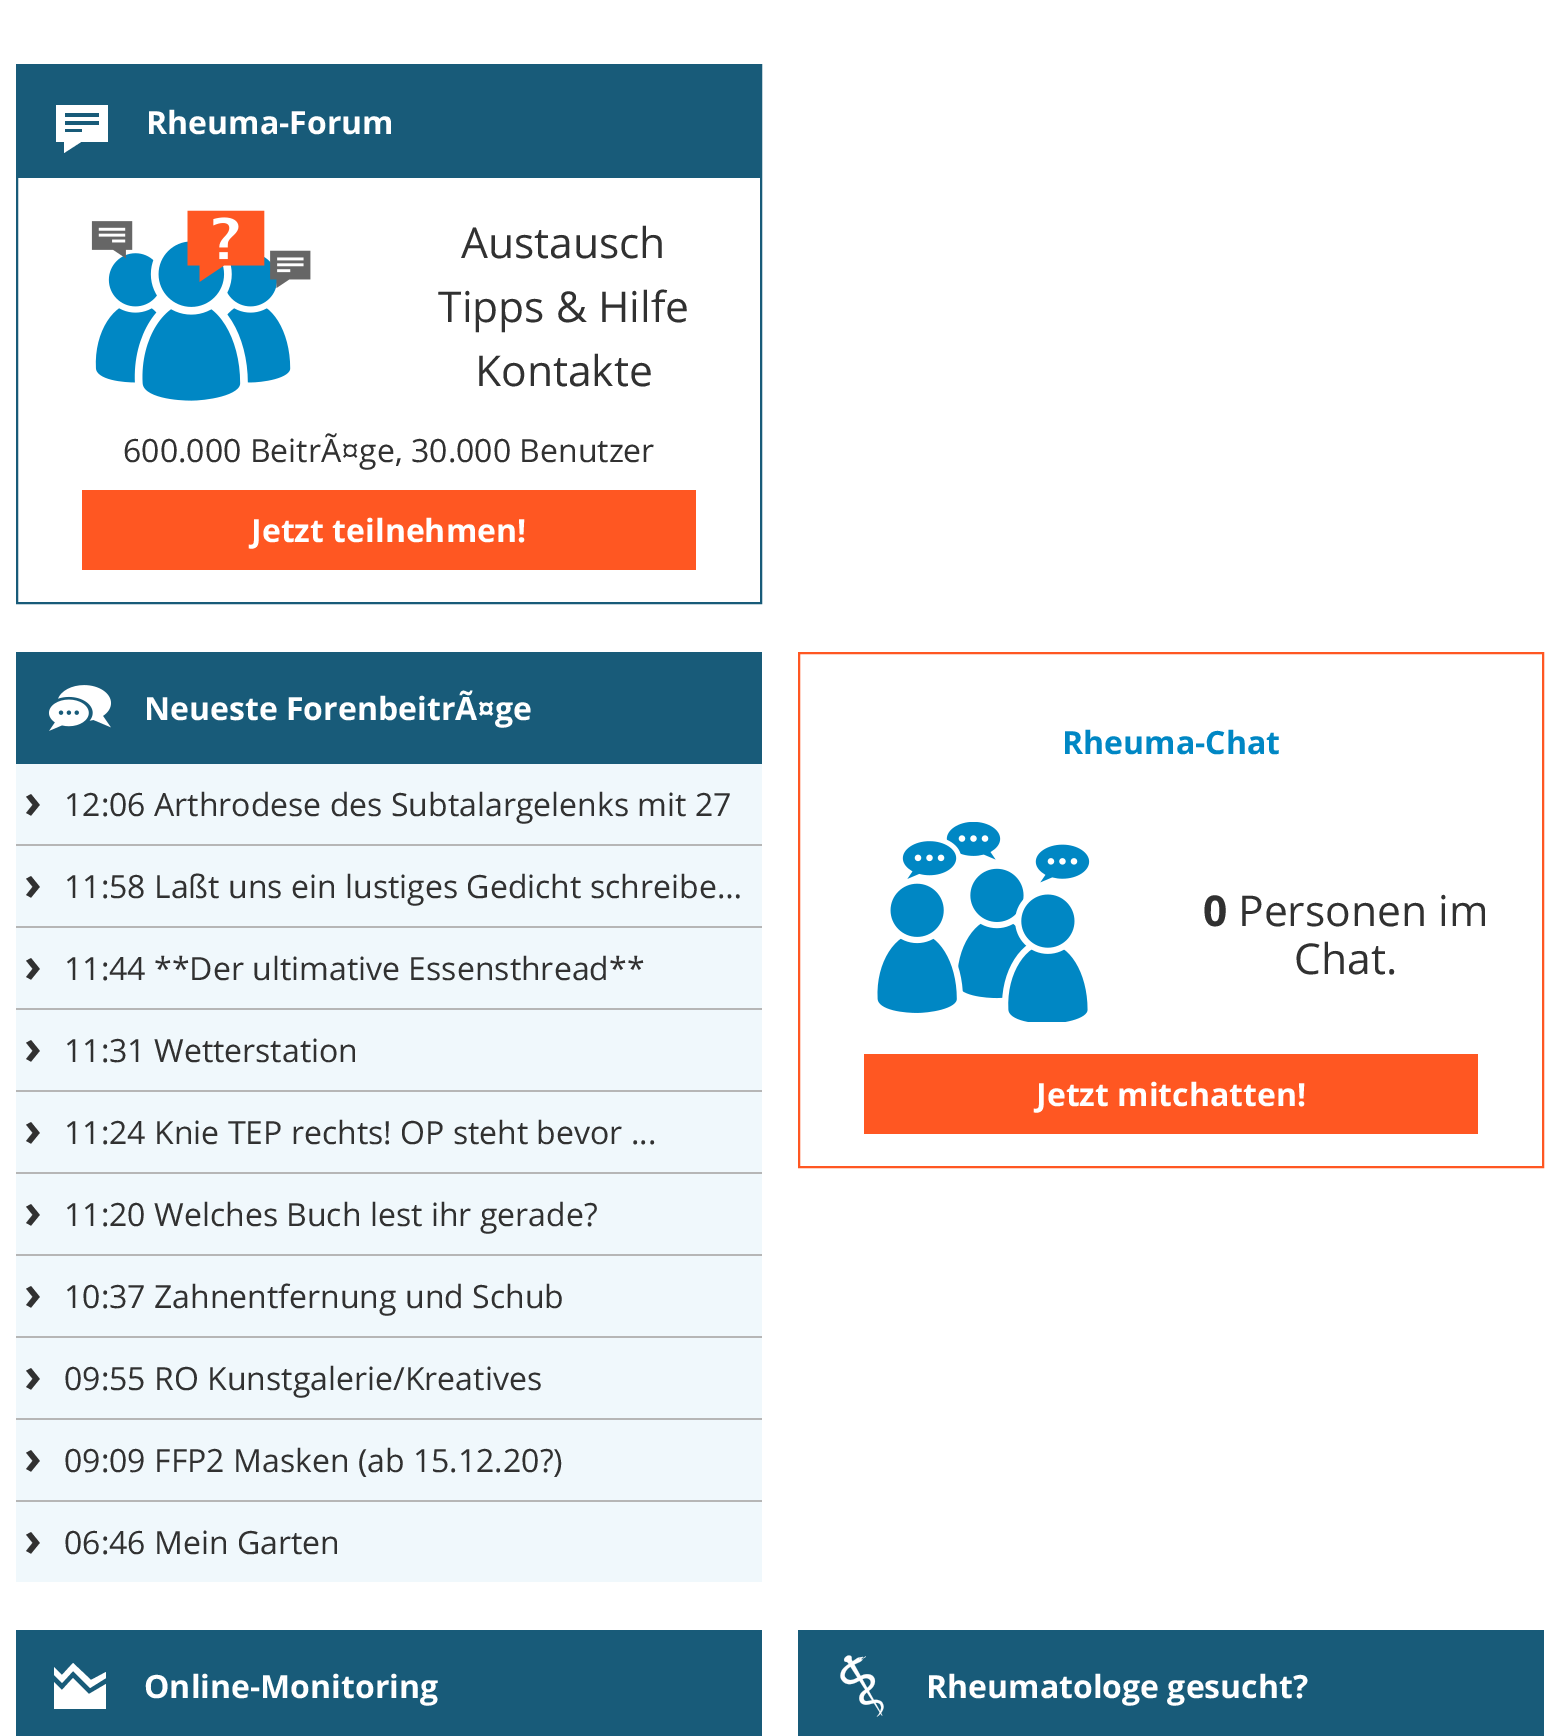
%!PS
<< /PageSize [1560 1736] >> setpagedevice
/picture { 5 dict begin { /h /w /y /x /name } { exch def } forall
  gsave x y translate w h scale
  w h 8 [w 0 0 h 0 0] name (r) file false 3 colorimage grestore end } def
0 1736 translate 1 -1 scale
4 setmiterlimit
1 setgray
0 0 1560 1736 rectfill
0.094 0.357 0.475 setrgbcolor
2 setlinewidth
17 65 744 538 rectstroke
18 66 742 112 rectfill
1 setgray
newpath 56 105 moveto 56 142 lineto 64 142 lineto 64 153 lineto 81 142 lineto 108 142 lineto 108 105 lineto closepath 82 132 moveto 65 132 lineto 65 129 lineto 82 129 lineto closepath 99 125 moveto 65 125 lineto 65 121 lineto 99 121 lineto closepath 99 117 moveto 65 117 lineto 65 113 lineto 99 113 lineto closepath fill
/OpenSans-Bold [32 0 0 -32 0 0] selectfont
146 134 moveto (Rheuma-Forum) show
(img1.rgb) 91 210 220 191 picture
/OpenSans-Regular [42.5 0 0 -42.5 0 0] selectfont
0.192 setgray
461 258 moveto (Austausch) show
438 322 moveto (Tipps & Hilfe) show
475 386 moveto (Kontakte) show
/OpenSans-Regular [32 0 0 -32 0 0] selectfont
123 462 moveto (600.000 BeitrÃ¤ge, 30.000 Benutzer) show
1 0.341 0.133 setrgbcolor
82 490 614 80 rectfill
/OpenSans-Bold [32 0 0 -32 0 0] selectfont
1 setgray
251 542 moveto (Jetzt teilnehmen!) show
0.941 0.973 0.988 setrgbcolor
16 764 746 818 rectfill
0.094 0.357 0.475 setrgbcolor
16 652 746 112 rectfill
(img2.rgb) 49 685 62 46 picture
1 setgray
144 720 moveto (Neueste ForenbeitrÃ¤ge) show
0.714 setgray
16 844 746 2 rectfill
/OpenSans-Bold [48 0 0 -48 0 0] selectfont
0.192 setgray
24 818 moveto (›) show
/OpenSans-Regular [32 0 0 -32 0 0] selectfont
64 816 moveto (12:06 Arthrodese des Subtalargelenks mit 27) show
0.714 setgray
16 926 746 2 rectfill
/OpenSans-Bold [48 0 0 -48 0 0] selectfont
0.192 setgray
24 900 moveto (›) show
/OpenSans-Regular [32 0 0 -32 0 0] selectfont
64 898 moveto (11:58 Laßt uns ein lustiges Gedicht schreibe…) show
0.714 setgray
16 1008 746 2 rectfill
/OpenSans-Bold [48 0 0 -48 0 0] selectfont
0.192 setgray
24 982 moveto (›) show
/OpenSans-Regular [32 0 0 -32 0 0] selectfont
64 980 moveto (11:44 **Der ultimative Essensthread**) show
0.714 setgray
16 1090 746 2 rectfill
/OpenSans-Bold [48 0 0 -48 0 0] selectfont
0.192 setgray
24 1064 moveto (›) show
/OpenSans-Regular [32 0 0 -32 0 0] selectfont
64 1062 moveto (11:31 Wetterstation) show
0.714 setgray
16 1172 746 2 rectfill
/OpenSans-Bold [48 0 0 -48 0 0] selectfont
0.192 setgray
24 1146 moveto (›) show
/OpenSans-Regular [32 0 0 -32 0 0] selectfont
64 1144 moveto (11:24 Knie TEP rechts! OP steht bevor ...) show
0.714 setgray
16 1254 746 2 rectfill
/OpenSans-Bold [48 0 0 -48 0 0] selectfont
0.192 setgray
24 1228 moveto (›) show
/OpenSans-Regular [32 0 0 -32 0 0] selectfont
64 1226 moveto (11:20 Welches Buch lest ihr gerade?) show
0.714 setgray
16 1336 746 2 rectfill
/OpenSans-Bold [48 0 0 -48 0 0] selectfont
0.192 setgray
24 1310 moveto (›) show
/OpenSans-Regular [32 0 0 -32 0 0] selectfont
64 1308 moveto (10:37 Zahnentfernung und Schub) show
0.714 setgray
16 1418 746 2 rectfill
/OpenSans-Bold [48 0 0 -48 0 0] selectfont
0.192 setgray
24 1392 moveto (›) show
/OpenSans-Regular [32 0 0 -32 0 0] selectfont
64 1390 moveto (09:55 RO Kunstgalerie/Kreatives) show
0.714 setgray
16 1500 746 2 rectfill
/OpenSans-Bold [48 0 0 -48 0 0] selectfont
0.192 setgray
24 1474 moveto (›) show
/OpenSans-Regular [32 0 0 -32 0 0] selectfont
64 1472 moveto (09:09 FFP2 Masken \(ab 15.12.20?\)) show
/OpenSans-Bold [48 0 0 -48 0 0] selectfont
24 1556 moveto (›) show
/OpenSans-Regular [32 0 0 -32 0 0] selectfont
64 1554 moveto (06:46 Mein Garten) show
1 0.341 0.133 setrgbcolor
799 653 744 514 rectstroke
/OpenSans-Bold [32 0 0 -32 0 0] selectfont
0 0.529 0.769 setrgbcolor
1062 754 moveto (Rheuma-Chat) show
(img3.rgb) 877 822 213 200 picture
/OpenSans-Bold [42.5 0 0 -42.5 0 0] selectfont
0.192 setgray
1203 926 moveto (0) show
/OpenSans-Regular [42.5 0 0 -42.5 0 0] selectfont
1238 926 moveto (Personen im) show
1294 974 moveto (Chat.) show
1 0.341 0.133 setrgbcolor
864 1054 614 80 rectfill
/OpenSans-Bold [32 0 0 -32 0 0] selectfont
1 setgray
1036 1106 moveto (Jetzt mitchatten!) show
0.094 0.357 0.475 setrgbcolor
16 1630 746 106 rectfill
1 setgray
newpath 106 1709 moveto 54 1709 lineto 54 1682 lineto 62 1690 lineto 73 1678 lineto 89 1694 lineto 106 1684 lineto closepath 62 1683 moveto 73 1671 lineto 90 1688 lineto 106 1678 lineto 106 1672 lineto 91 1680 lineto 73 1663 lineto 62 1675 lineto 54 1667 lineto 54 1675 lineto closepath fill
144 1698 moveto (Online-Monitoring) show
0.094 0.357 0.475 setrgbcolor
798 1630 746 106 rectfill
(img4.rgb) 840 1655 44 62 picture
1 setgray
926 1698 moveto (Rheumatologe gesucht?) show
showpage
